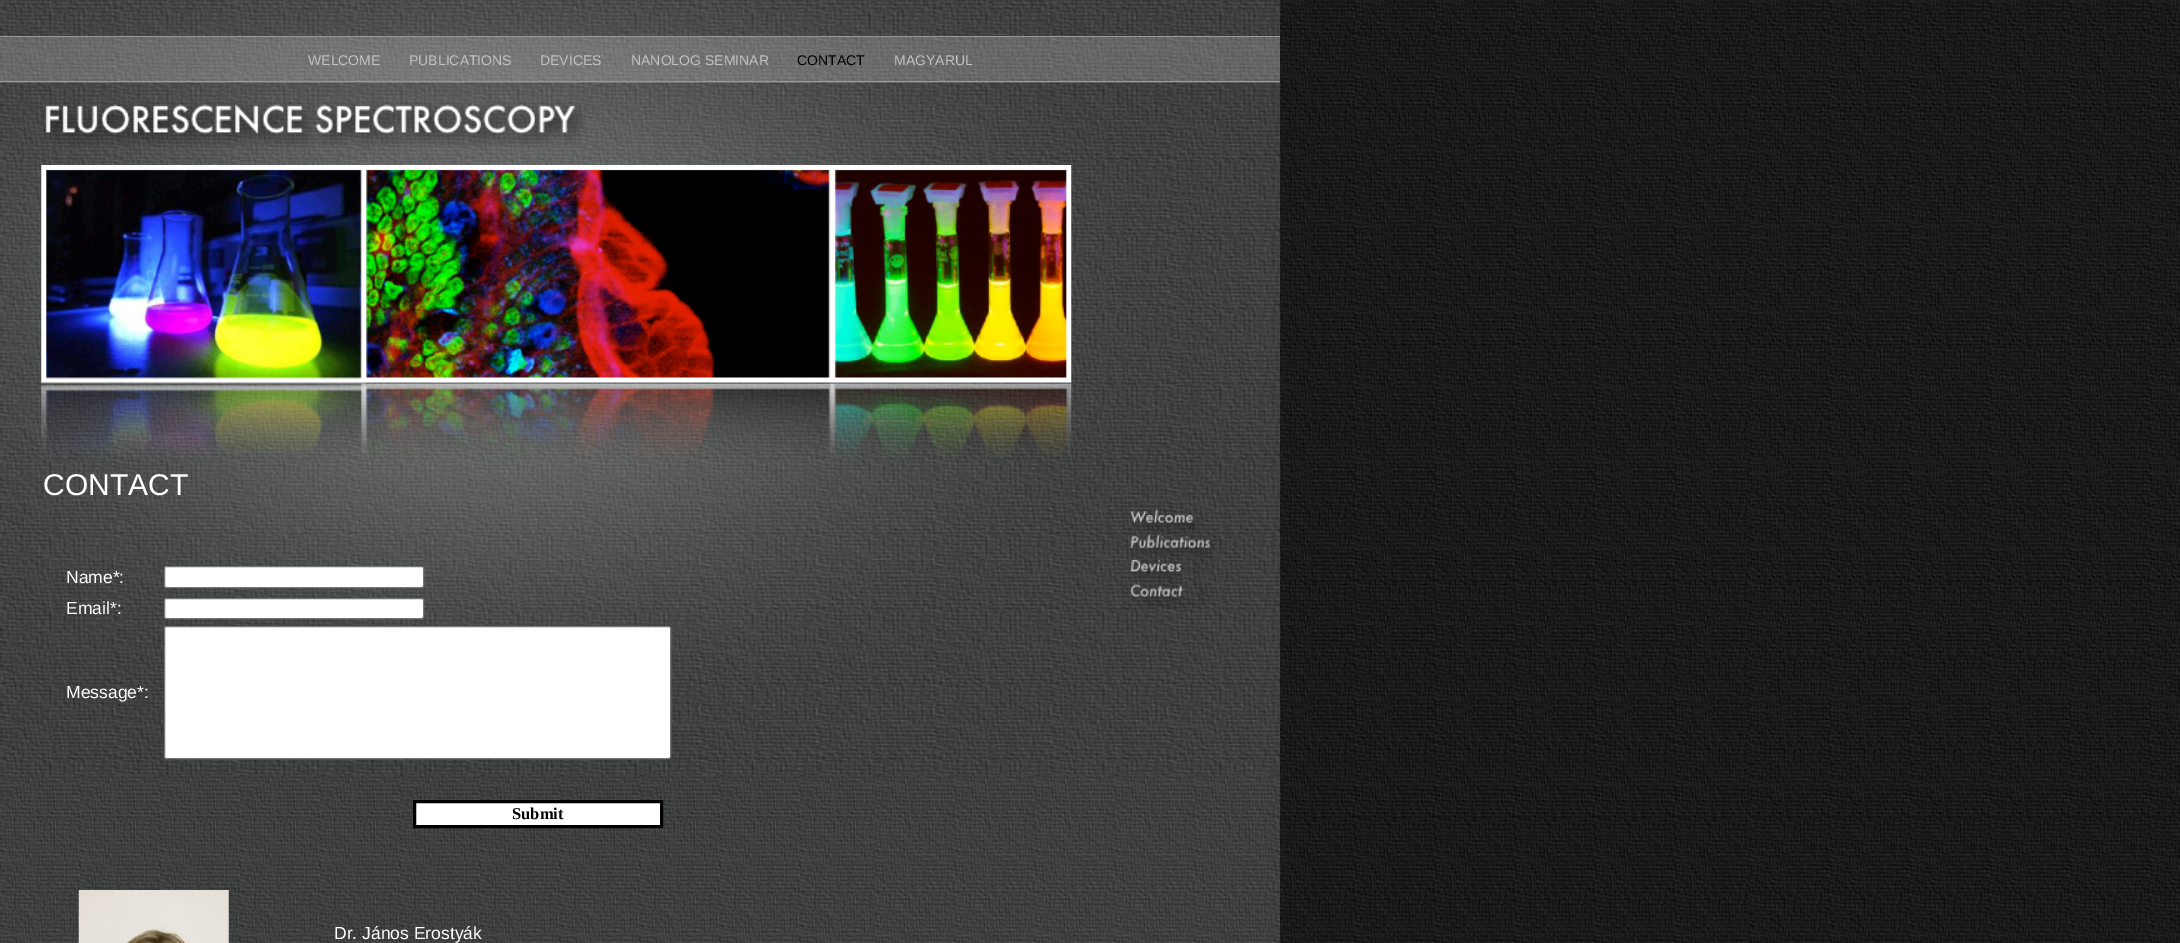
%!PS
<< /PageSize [2180 943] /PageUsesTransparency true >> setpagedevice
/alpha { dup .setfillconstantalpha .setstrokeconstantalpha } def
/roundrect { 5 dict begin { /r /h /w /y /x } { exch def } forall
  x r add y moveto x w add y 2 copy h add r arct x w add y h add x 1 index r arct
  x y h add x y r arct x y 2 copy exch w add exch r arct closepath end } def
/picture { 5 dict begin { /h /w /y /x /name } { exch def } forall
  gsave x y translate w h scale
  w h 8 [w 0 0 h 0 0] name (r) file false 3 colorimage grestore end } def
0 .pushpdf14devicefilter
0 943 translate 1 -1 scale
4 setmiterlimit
1 setgray
0 0 2180 943 rectfill
(img1.rgb) 1280 0 900 943 picture
(img2.rgb) 0 775 1280 168 picture
(img3.rgb) 0 0 1280 775 picture
0.2 alpha
0 37 1280 46 rectfill
1 alpha
0.6 setgray
0 36 1280 1 rectfill
0 81 1280 1 rectfill
/LiberationSans-Regular [14 0 0 -14 0 0] selectfont
0.757 setgray
308 65 moveto (WELCOME) show
409 65 moveto (PUBLICATIONS) show
540 65 moveto (DEVICES) show
631 65 moveto (NANOLOG SEMINAR) show
0 setgray
797 65 moveto (CONTACT) show
0.757 setgray
894 65 moveto (MAGYARUL) show
(img4.rgb) 43 102 543 45 picture
(img5.rgb) 41 165 1031 294 picture
/LiberationSans-Regular [30 0 0 -30 0 0] selectfont
1 setgray
43 495 moveto (CONTACT) show
(img6.rgb) 1130 510 65 20 picture
(img8.rgb) 1130 529 81 25 picture
(img9.rgb) 1130 554 53 25 picture
(img10.rgb) 1130 579 53 24 picture
(img7.rgb) 1137 515 78 93 picture
/LiberationSans-Regular [17.5 0 0 -17.5 0 0] selectfont
66 583 moveto (Name*:) show
164.5 566.5 259 21 2 roundrect gsave fill grestore
0.463 setgray
stroke
1 setgray
66 614 moveto (Email*:) show
164.5 598.5 259 20 2 roundrect gsave fill grestore
0.463 setgray
stroke
1 setgray
66 698 moveto (Message*:) show
164.5 626.5 506 132 2 roundrect gsave fill grestore
0.463 setgray
stroke
1 setgray
newpath 414.5 801.5 moveto 661.5 801.5 lineto 661.5 826.5 lineto 414.5 826.5 lineto closepath gsave fill grestore
0 setgray
3 setlinewidth
stroke
/LiberationSerif-Bold [16.5 0 0 -16.5 0 0] selectfont
512 819 moveto (Submit) show
(img11.rgb) 78 890 151 53 picture
/LiberationSans-Regular [17.5 0 0 -17.5 0 0] selectfont
1 setgray
334 939 moveto (Dr. János Erostyák) show
.poppdf14devicefilter showpage
